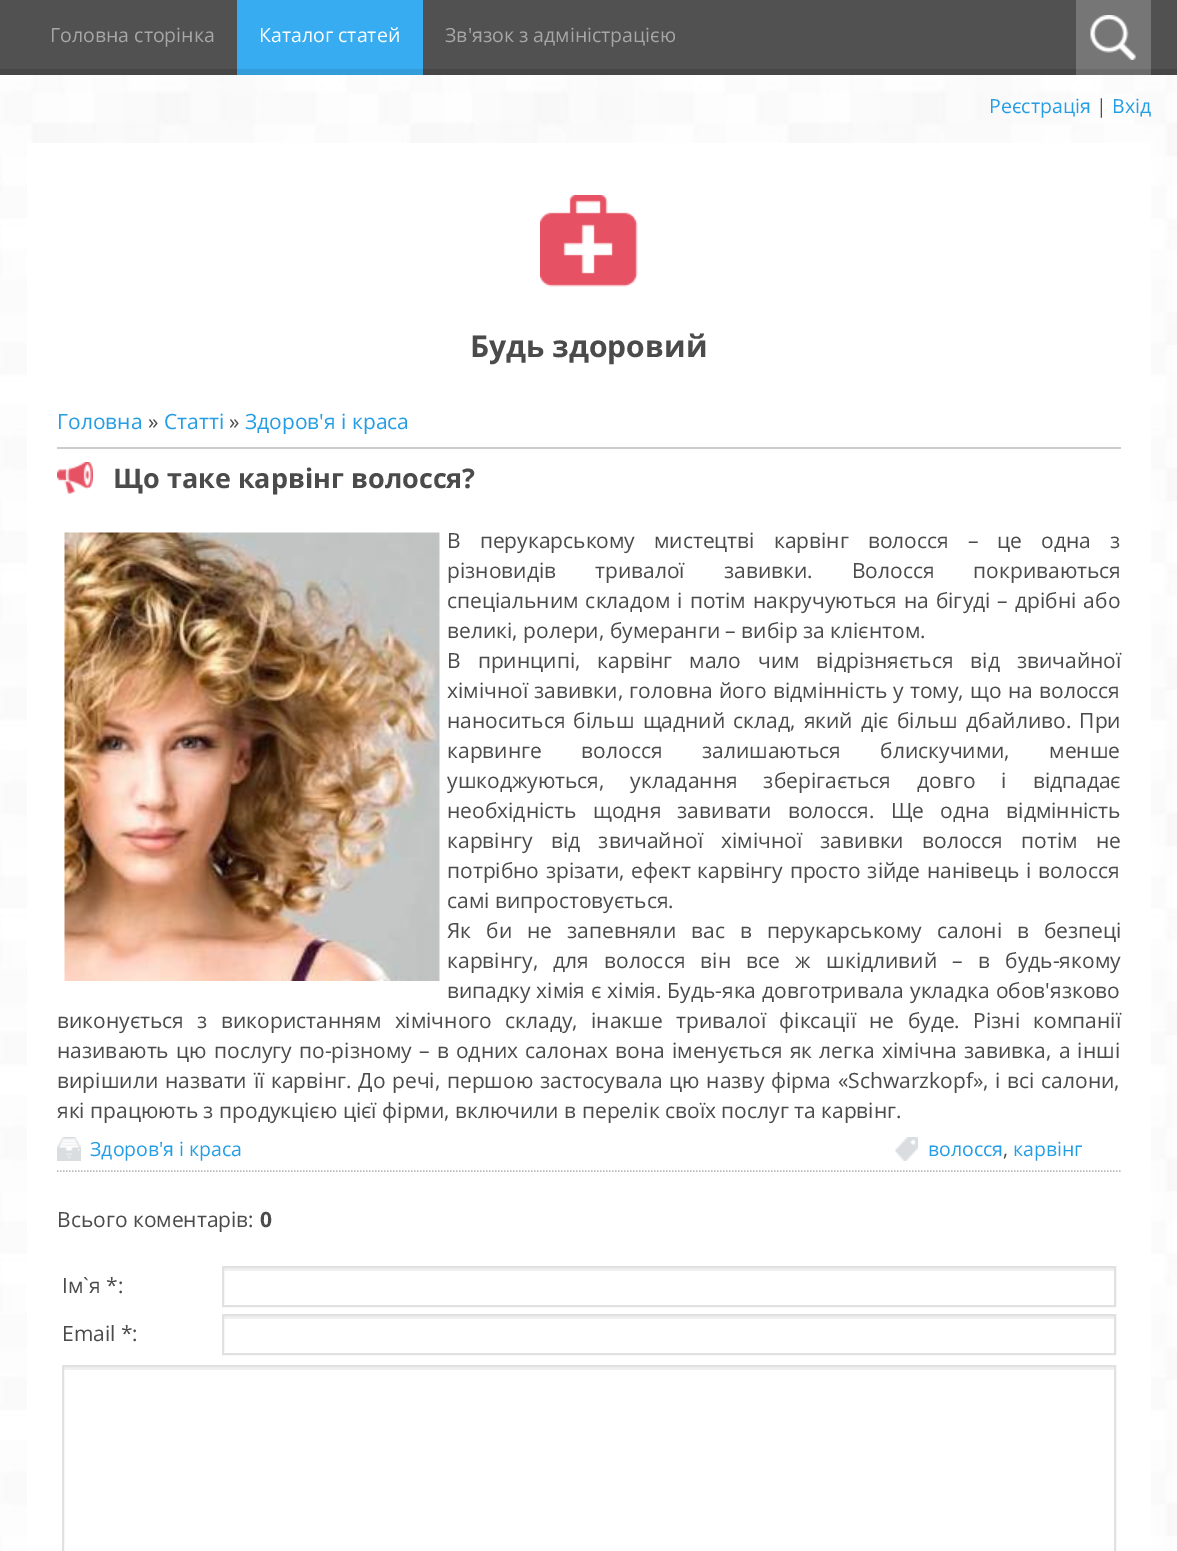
%!PS
<< /PageSize [1177 1551] >> setpagedevice
/picture { 5 dict begin { /h /w /y /x /name } { exch def } forall
  gsave x y translate w h scale
  w h 8 [w 0 0 h 0 0] name (r) file false 3 colorimage grestore end } def
0 1551 translate 1 -1 scale
4 setmiterlimit
1 setgray
0 0 1177 1551 rectfill
(img1.rgb) 0 75 1177 1476 picture
0.318 setgray
0 0 1177 69 rectfill
0.275 setgray
0 69 1177 6 rectfill
/OpenSans-Regular [19.5 0 0 -19.5 0 0] selectfont
0.655 setgray
50 42 moveto (Головна сторінка) show
0.22 0.675 0.941 setrgbcolor
237 0 186 69 rectfill
0.2 0.616 0.855 setrgbcolor
237 69 186 6 rectfill
1 setgray
259 42 moveto (Каталог статей) show
0.655 setgray
445 42 moveto (Зв'язок з адміністрацією) show
0.463 setgray
1076 0 75 69 rectfill
(img2.rgb) 1090 15 46 45 picture
0.42 setgray
1076 69 75 6 rectfill
0.137 0.616 0.894 setrgbcolor
989 113 moveto (Реєстрація) show
0.294 setgray
1096 113 moveto (|) show
0.137 0.616 0.894 setrgbcolor
1112 113 moveto (Вхід) show
1 setgray
27 143 1124 1408 rectfill
(img3.rgb) 540 195 98 92 picture
/OpenSans-Bold [30 0 0 -30 0 0] selectfont
0.294 setgray
470 357 moveto (Будь здоровий) show
/OpenSans-Regular [21 0 0 -21 0 0] selectfont
0.137 0.616 0.894 setrgbcolor
57 429 moveto (Головна) show
0.294 setgray
148 429 moveto (») show
0.137 0.616 0.894 setrgbcolor
164 429 moveto (Статті) show
0.294 setgray
229 429 moveto (») show
0.137 0.616 0.894 setrgbcolor
245 429 moveto (Здоров'я і краса) show
0.8 setgray
57 447 1064 2 rectfill
(img4.rgb) 57 462 36 32 picture
/OpenSans-Bold [27 0 0 -27 0 0] selectfont
0.294 setgray
113 488 moveto (Що таке карвінг волосся?) show
0.733 setgray
1.5 setlinewidth
[1.5 1.5] 0 setdash
newpath 57 1171 moveto 1120.5 1171 lineto stroke
(img5.rgb) 64 532 376 449 picture
/OpenSans-Regular [21 0 0 -21 0 0] selectfont
0.294 setgray
447 548 moveto 13.5 0 32 (В перукарському мистецтві карвінг волосся – це одна з) widthshow
447 578 moveto 33.5 0 32 (різновидів тривалої завивки. Волосся покриваються) widthshow
447 608 moveto 1.6 0 32 (спеціальним складом і потім накручуються на бігуді – дрібні або) widthshow
447 638 moveto (великі, ролери, бумеранги – вибір за клієнтом.) show
447 668 moveto 11.5 0 32 (В принципі, карвінг мало чим відрізняється від звичайної) widthshow
447 698 moveto 0.75 0 32 (хімічної завивки, головна його відмінність у тому, що на волосся) widthshow
447 728 moveto 2.75 0 32 (наноситься більш щадний склад, який діє більш дбайливо. При) widthshow
447 758 moveto 34 0 32 (карвинге волосся залишаються блискучими, менше) widthshow
447 788 moveto 20.5 0 32 (ушкоджуються, укладання зберігається довго і відпадає) widthshow
447 818 moveto 10.75 0 32 (необхідність щодня завивати волосся. Ще одна відмінність) widthshow
447 848 moveto 12.75 0 32 (карвінгу від звичайної хімічної завивки волосся потім не) widthshow
447 878 moveto 1.25 0 32 (потрібно зрізати, ефект карвінгу просто зійде нанівець і волосся) widthshow
447 908 moveto (самі випростовується.) show
447 938 moveto 9.5 0 32 (Як би не запевняли вас в перукарському салоні в безпеці) widthshow
447 968 moveto 9.75 0 32 (карвінгу, для волосся він все ж шкідливий – в будь-якому) widthshow
447 998 moveto 0.5 0 32 (випадку хімія є хімія. Будь-яка довготривала укладка обов'язково) widthshow
57 1028 moveto 7.9 0 32 (виконується з використанням хімічного складу, інакше тривалої фіксації не буде. Різні компанії) widthshow
57 1058 moveto 1.8 0 32 (називають цю послугу по-різному – в одних салонах вона іменується як легка хімічна завивка, а інші) widthshow
57 1088 moveto 1.3 0 32 (вирішили назвати її карвінг. До речі, першою застосувала цю назву фірма «Schwarzkopf», і всі салони,) widthshow
57 1118 moveto (які працюють з продукцією цієї фірми, включили в перелік своїх послуг та карвінг.) show
(img6.rgb) 57 1137 24 24 picture
/OpenSans-Regular [19.5 0 0 -19.5 0 0] selectfont
0.137 0.616 0.894 setrgbcolor
90 1156 moveto (Здоров'я і краса) show
(img7.rgb) 895 1137 23 24 picture
928 1156 moveto (волосся) show
0.294 setgray
1003 1156 moveto (,) show
0.137 0.616 0.894 setrgbcolor
1013 1156 moveto (карвінг) show
/OpenSans-Regular [21 0 0 -21 0 0] selectfont
0.294 setgray
57 1227 moveto (Всього коментарів:) show
/OpenSans-Bold [21 0 0 -21 0 0] selectfont
260 1227 moveto (0) show
/OpenSans-Regular [21 0 0 -21 0 0] selectfont
62 1293 moveto (Ім`я *:) show
0.941 setgray
224 1268 891 3 rectfill
0.882 setgray
2 setlinewidth
[] 0 setdash
223 1267 892 39 rectstroke
0.294 setgray
62 1341 moveto (Email *:) show
0.941 setgray
224 1316 891 3 rectfill
0.882 setgray
223 1315 892 39 rectstroke
0.941 setgray
63 1367 1052 3 rectfill
0.882 setgray
63 1366 1052 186 rectstroke
showpage
